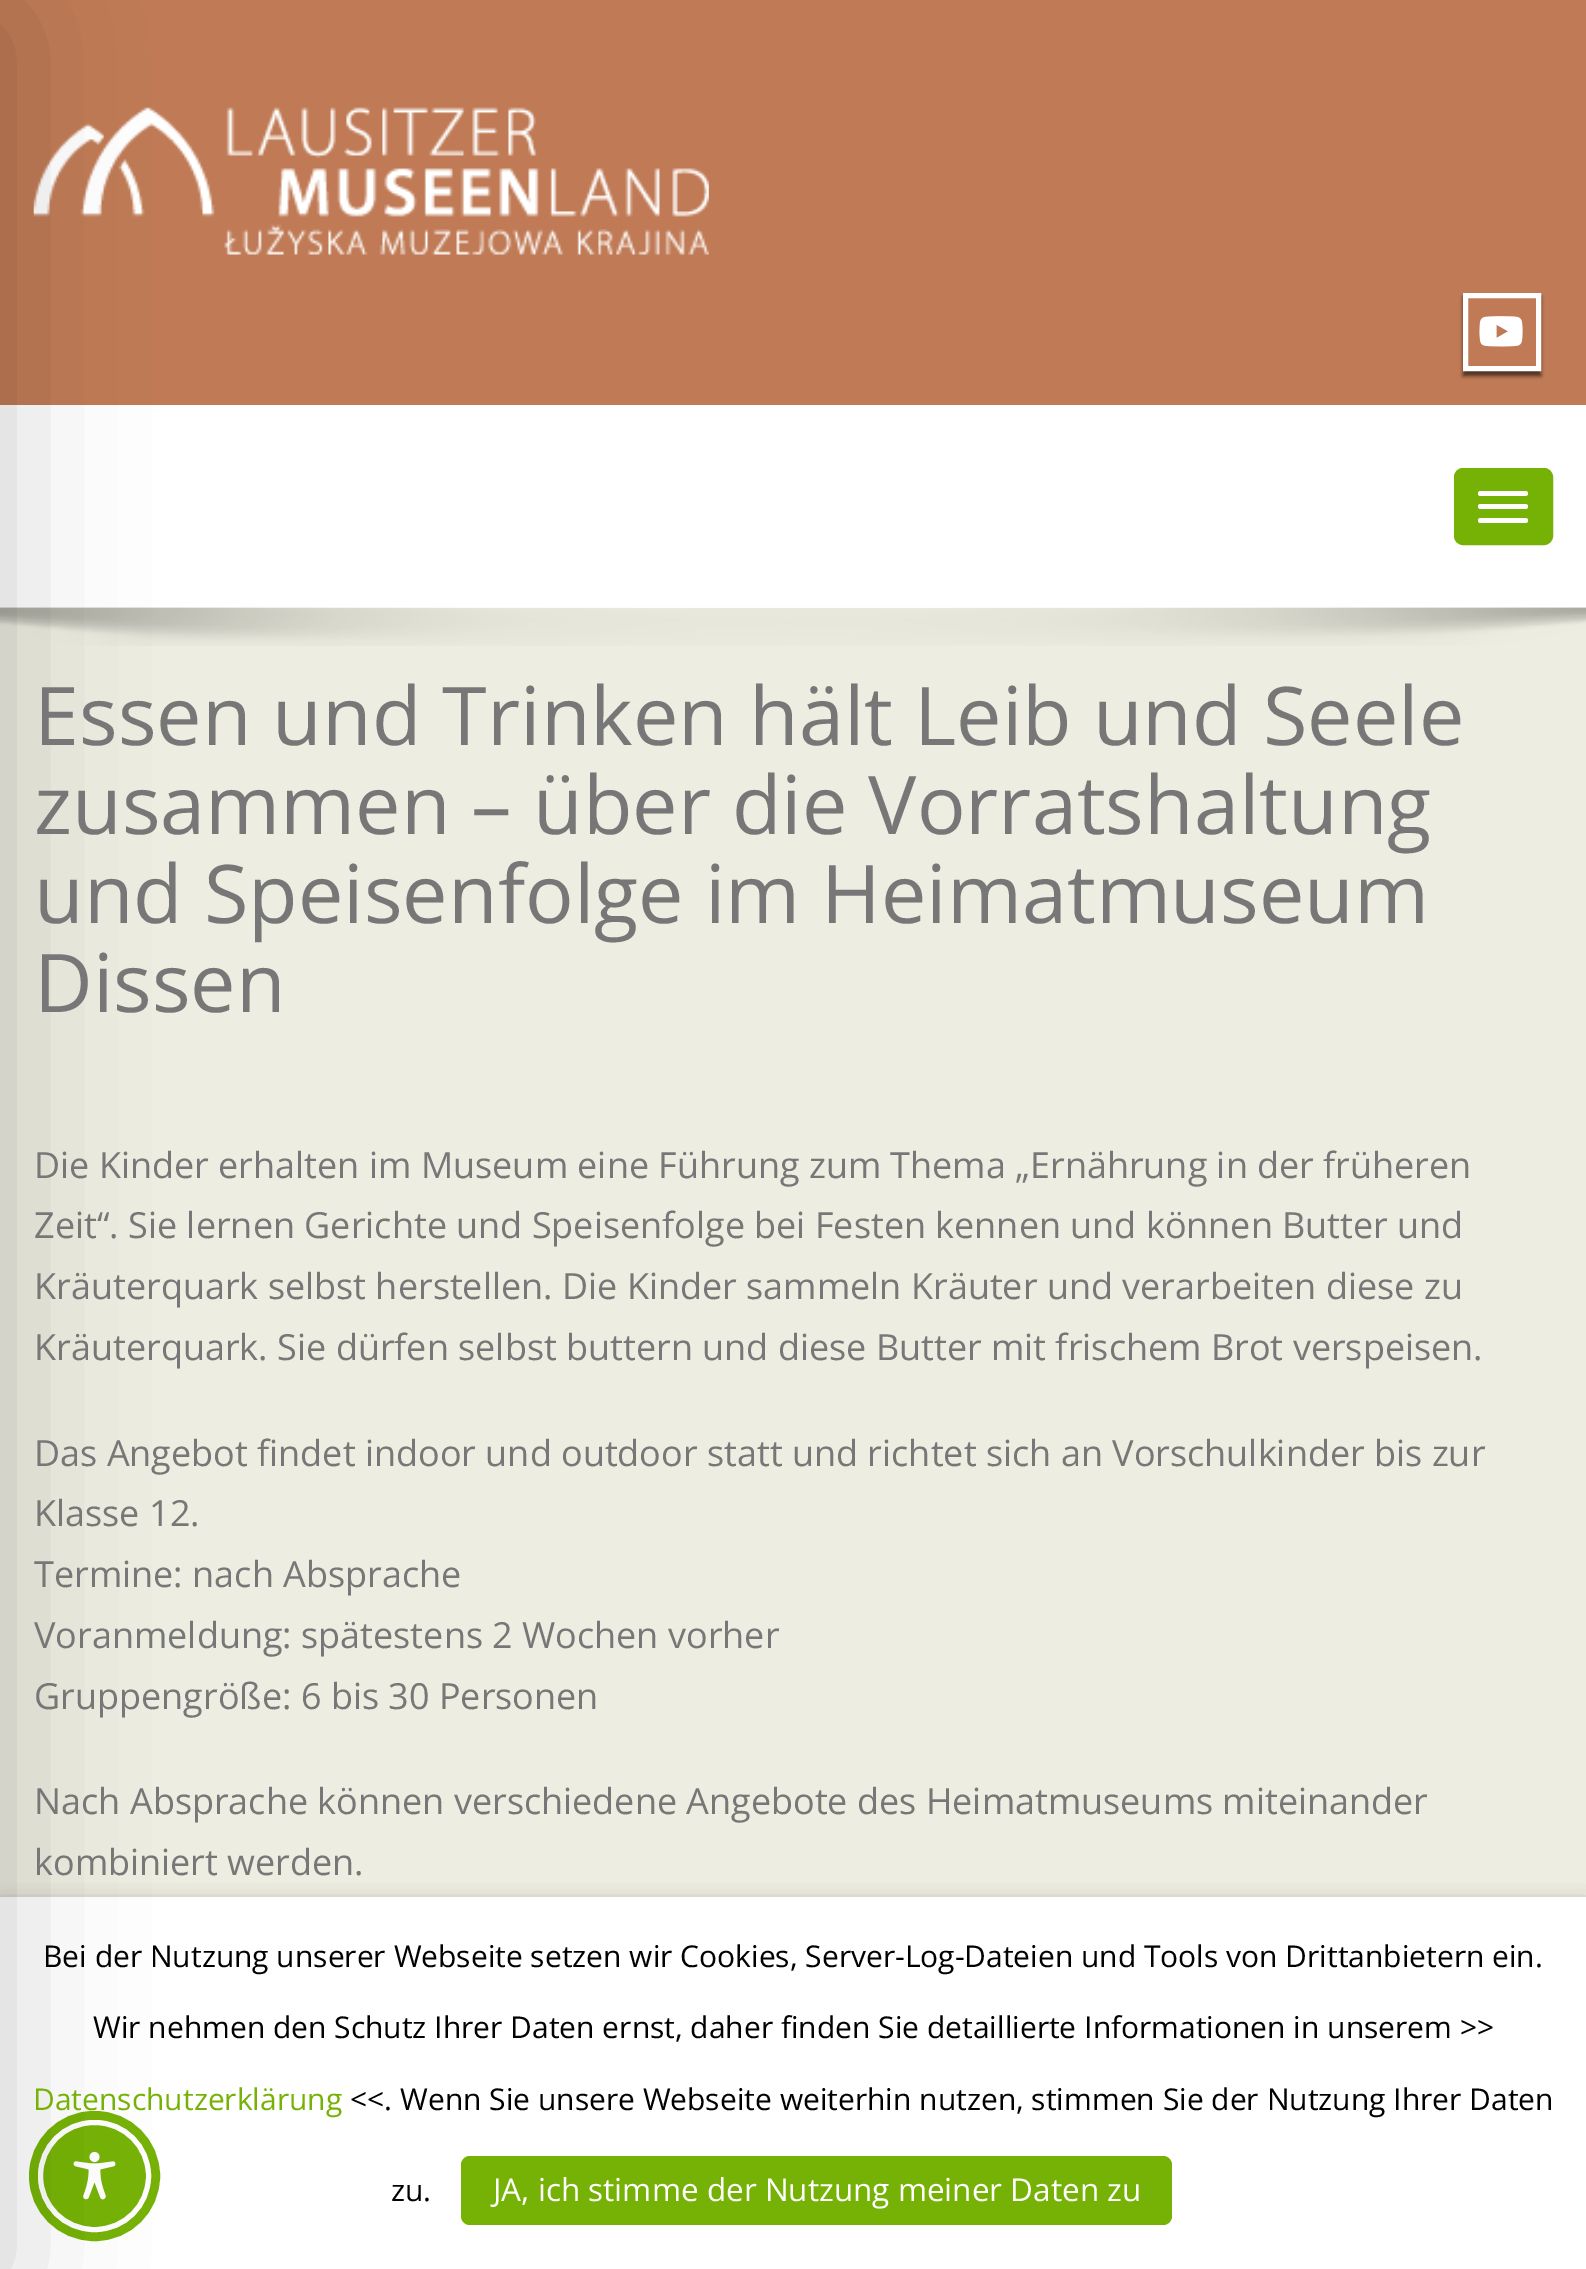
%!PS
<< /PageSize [1586 2269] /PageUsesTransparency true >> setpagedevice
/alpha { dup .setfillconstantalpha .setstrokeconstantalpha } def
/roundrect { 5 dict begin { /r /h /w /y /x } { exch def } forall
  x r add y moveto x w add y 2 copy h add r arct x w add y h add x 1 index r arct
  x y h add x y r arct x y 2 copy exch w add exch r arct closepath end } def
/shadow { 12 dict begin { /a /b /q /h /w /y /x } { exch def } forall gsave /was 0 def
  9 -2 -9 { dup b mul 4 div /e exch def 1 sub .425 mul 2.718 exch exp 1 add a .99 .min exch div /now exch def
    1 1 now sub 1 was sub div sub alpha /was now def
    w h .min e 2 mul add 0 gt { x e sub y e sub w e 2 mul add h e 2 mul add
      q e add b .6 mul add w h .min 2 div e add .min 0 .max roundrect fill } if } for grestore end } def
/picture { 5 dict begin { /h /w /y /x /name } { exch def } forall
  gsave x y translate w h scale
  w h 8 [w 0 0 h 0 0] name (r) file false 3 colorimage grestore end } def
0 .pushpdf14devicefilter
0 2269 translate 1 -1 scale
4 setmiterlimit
0.929 0.929 0.882 setrgbcolor
0 0 1586 2269 rectfill
0.753 0.482 0.337 setrgbcolor
0 0 1586 405 rectfill
(img1.rgb) 33 107 676 148 picture
1 setgray
0 405 1586 203 rectfill
(img3.rgb) 0 607 1586 39 picture
0 setgray
0 1908 1586 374 0 11 0.5 shadow
1 setgray
0 1897 1586 372 rectfill
0.463 0.698 0.024 setrgbcolor
9 setlinewidth
33.5 2115.5 122 121 60.5 roundrect stroke
40.5 2122.5 108 107 53.5 roundrect gsave fill grestore
1 setgray
5 setlinewidth
stroke
(img4.rgb) 73 2151 43 49 picture
0 setgray
-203 23 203 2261 0 67.5 0.2 shadow
gsave
newpath 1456 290 moveto 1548 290 lineto 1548 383 lineto 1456 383 lineto closepath 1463 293 moveto 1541 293 lineto 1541 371 lineto 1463 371 lineto closepath eoclip newpath
1463 297 78 79 0 2 0.6 shadow
grestore
1 setgray
1465.5 295.5 73 73 rectstroke
(img2.rgb) 1479 316 44 31 picture
0.463 0.698 0.024 setrgbcolor
1455 469 97 75 8 roundrect gsave fill grestore
2 setlinewidth
stroke
1 setgray
1478 491 50 5 2.5 roundrect fill
1478 504 50 5 2.5 roundrect fill
1478 518 50 5 2.5 roundrect fill
/OpenSans-Regular [81 0 0 -81 0 0] selectfont
0.467 setgray
34 745 moveto (Essen und Trinken hält Leib und Seele) show
34 834 moveto (zusammen – über die Vorratshaltung) show
34 923 moveto (und Speisenfolge im Heimatmuseum) show
34 1012 moveto (Dissen) show
/OpenSans-Regular [36 0 0 -36 0 0] selectfont
34 1178 moveto (Die Kinder erhalten im Museum eine Führung zum Thema „Ernährung in der früheren) show
34 1238 moveto (Zeit“. Sie lernen Gerichte und Speisenfolge bei Festen kennen und können Butter und) show
34 1299 moveto (Kräuterquark selbst herstellen. Die Kinder sammeln Kräuter und verarbeiten diese zu) show
34 1360 moveto (Kräuterquark. Sie dürfen selbst buttern und diese Butter mit frischem Brot verspeisen.) show
34 1466 moveto (Das Angebot findet indoor und outdoor statt und richtet sich an Vorschulkinder bis zur) show
34 1526 moveto (Klasse 12.) show
34 1587 moveto (Termine: nach Absprache) show
34 1648 moveto (Voranmeldung: spätestens 2 Wochen vorher) show
34 1709 moveto (Gruppengröße: 6 bis 30 Personen) show
34 1814 moveto (Nach Absprache können verschiedene Angebote des Heimatmuseums miteinander) show
34 1875 moveto (kombiniert werden.) show
/OpenSans-Regular [30 0 0 -30 0 0] selectfont
0 setgray
43 1967 moveto (Bei der Nutzung unserer Webseite setzen wir Cookies, Server-Log-Dateien und Tools von Drittanbietern ein.) show
93 2038 moveto (Wir nehmen den Schutz Ihrer Daten ernst, daher finden Sie detaillierte Informationen in unserem >>) show
0.463 0.698 0.024 setrgbcolor
33 2110 moveto (Datenschutzerklärung) show
0 setgray
350 2110 moveto (<<. Wenn Sie unsere Webseite weiterhin nutzen, stimmen Sie der Nutzung Ihrer Daten) show
391 2201 moveto (zu.) show
0.463 0.698 0.024 setrgbcolor
461 2156 711 69 9 roundrect fill
/OpenSans-Regular [31.5 0 0 -31.5 0 0] selectfont
1 setgray
493 2201 moveto (JA, ich stimme der Nutzung meiner Daten zu) show
.poppdf14devicefilter showpage
